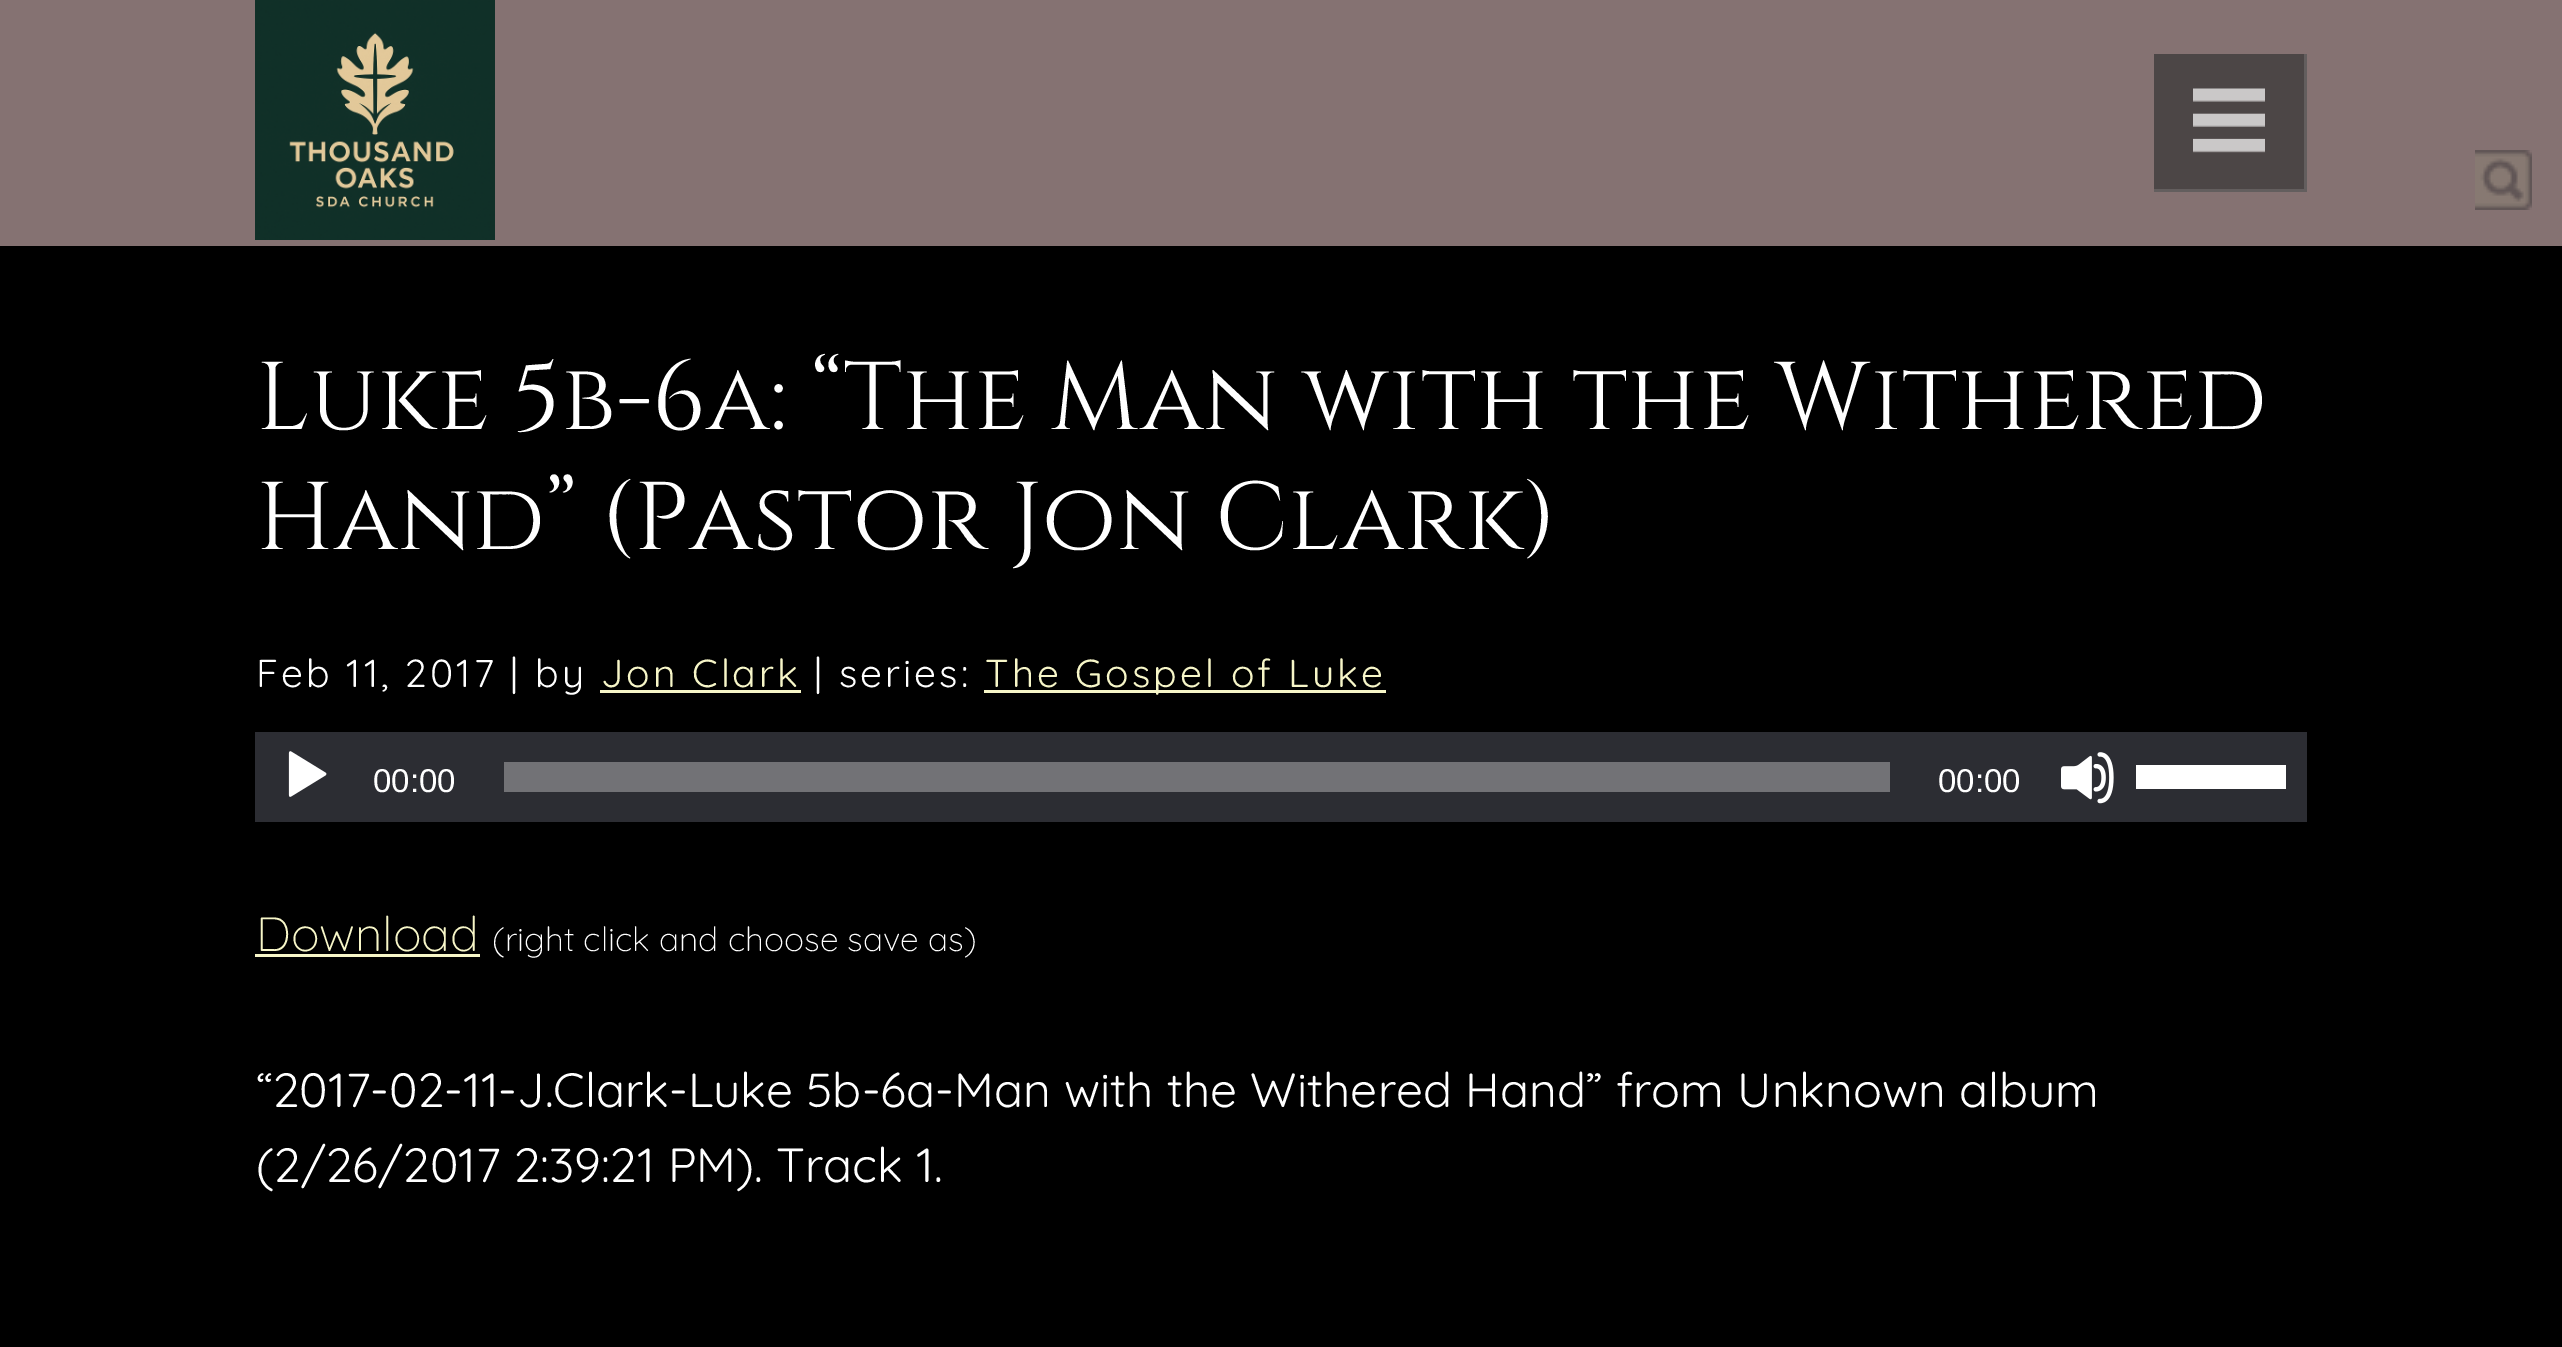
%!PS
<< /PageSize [2562 1347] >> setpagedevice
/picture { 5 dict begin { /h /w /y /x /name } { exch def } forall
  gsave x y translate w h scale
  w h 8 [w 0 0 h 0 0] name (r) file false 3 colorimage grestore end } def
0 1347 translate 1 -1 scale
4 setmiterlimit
0 setgray
0 0 2562 1347 rectfill
0.522 0.447 0.447 setrgbcolor
0 0 2562 246 rectfill
(img1.rgb) 255 0 240 240 picture
0.298 0.275 0.275 setrgbcolor
2154 54 150 135 rectfill
(img2.rgb) 2193 88 72 65 picture
0.388 0.369 0.369 setrgbcolor
2304 54 3 138 rectfill
2154 189 153 3 rectfill
(img3.rgb) 2475 150 57 60 picture
/Cinzel-Regular [96 0 0 -96 0 0] selectfont
1 setgray
256 429 moveto (Luke 5b-6a: “The Man with the Withered) show
256 549 moveto (Hand” \(Pastor Jon Clark\)) show
/Quicksand-Regular [39 0 0 -39 0 0] selectfont
256 687 moveto 3 0 (Feb 11, 2017 | by) ashow
0.969 0.965 0.784 setrgbcolor
601 687 moveto 3 0 (Jon Clark) ashow
600 690 201 3 rectfill
1 setgray
814 687 moveto 3 0 (| series:) ashow
0.969 0.965 0.784 setrgbcolor
984 690 402 3 rectfill
985 687 moveto 3 0 (The Gospel of Luke) ashow
0.173 0.176 0.2 setrgbcolor
255 732 2052 90 rectfill
(img4.rgb) 288 751 39 46 picture
/LiberationSans-Regular [33 0 0 -33 0 0] selectfont
1 setgray
373 792 moveto (00:00) show
0.447 0.447 0.463 setrgbcolor
504 762 1386 30 rectfill
1 setgray
1938 792 moveto (00:00) show
(img5.rgb) 2061 752 53 52 picture
2136 765 150 24 rectfill
/Quicksand-Light [48 0 0 -48 0 0] selectfont
0.969 0.965 0.784 setrgbcolor
256 951 moveto (Download) show
/Quicksand-Light [33.6 0 0 -33.6 0 0] selectfont
1 setgray
492 951 moveto (\(right click and choose save as\)) show
0.969 0.965 0.784 setrgbcolor
255 954 225 3 rectfill
/Quicksand-Regular [48 0 0 -48 0 0] selectfont
1 setgray
256 1107 moveto (“2017-02-11-J.Clark-Luke 5b-6a-Man with the Withered Hand” from Unknown album) show
256 1182 moveto (\(2/26/2017 2:39:21 PM\). Track 1.) show
showpage
